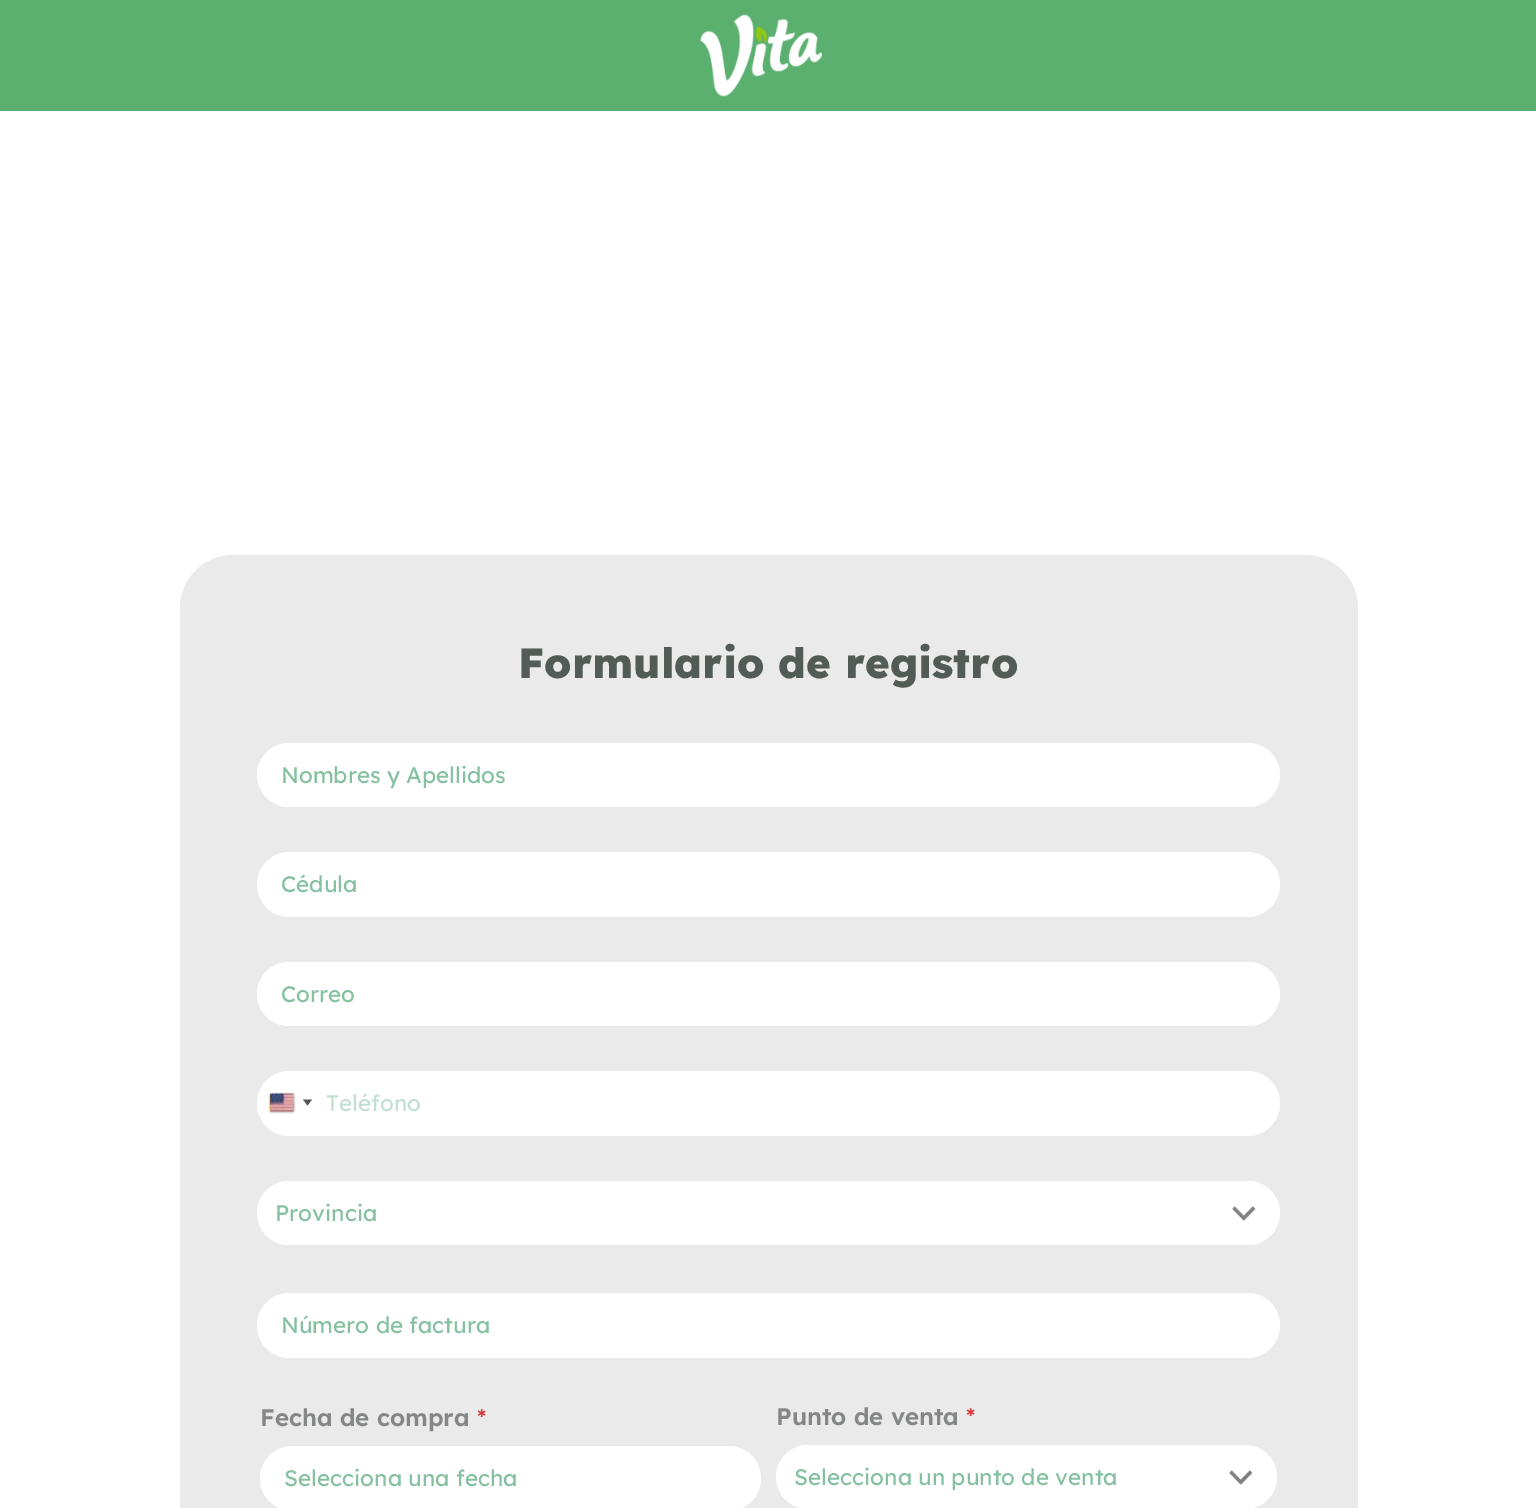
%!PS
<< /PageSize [1536 1508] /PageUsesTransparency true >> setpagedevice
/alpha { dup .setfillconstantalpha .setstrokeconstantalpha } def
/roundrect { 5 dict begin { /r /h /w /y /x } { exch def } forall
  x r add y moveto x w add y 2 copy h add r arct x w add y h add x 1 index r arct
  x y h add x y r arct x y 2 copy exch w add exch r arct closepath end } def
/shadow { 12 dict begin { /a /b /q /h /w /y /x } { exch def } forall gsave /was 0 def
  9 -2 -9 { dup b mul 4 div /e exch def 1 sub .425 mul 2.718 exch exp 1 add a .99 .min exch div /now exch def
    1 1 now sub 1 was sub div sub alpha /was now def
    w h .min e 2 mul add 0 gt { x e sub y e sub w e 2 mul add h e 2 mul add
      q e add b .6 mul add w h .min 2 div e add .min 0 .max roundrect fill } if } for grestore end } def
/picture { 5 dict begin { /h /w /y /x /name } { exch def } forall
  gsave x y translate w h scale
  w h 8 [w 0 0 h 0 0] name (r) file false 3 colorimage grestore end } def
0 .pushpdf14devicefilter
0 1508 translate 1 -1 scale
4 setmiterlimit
1 setgray
0 0 1536 1508 rectfill
0.357 0.686 0.435 setrgbcolor
0 0 1536 111 rectfill
(img1.rgb) 700 14 122 83 picture
0.918 setgray
180 555 1178 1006 53 roundrect fill
/Lexend-ExtraBold [42 0 0 -42 0 0] selectfont
0.322 0.357 0.337 setrgbcolor
518 678 moveto (Formulario de registro) show
1 setgray
257 743 1023 64 32 roundrect fill
/Lexend-Regular [22.5 0 0 -22.5 0 0] selectfont
0.522 0.757 0.631 setrgbcolor
281 783 moveto (Nombres y Apellidos) show
1 setgray
257 852 1023 65 32.5 roundrect fill
0.522 0.757 0.631 setrgbcolor
281 892 moveto (Cédula) show
1 setgray
257 962 1023 64 32 roundrect fill
0.522 0.757 0.631 setrgbcolor
281 1002 moveto (Correo) show
1 setgray
257 1071 1023 65 32.5 roundrect fill
0.533 setgray
270 1094 24 18 1.5 1 1 shadow
(img2.rgb) 270 1093 24 19 picture
0.333 setgray
newpath 303 1099.5 moveto 312 1099.5 lineto 307.5 1105.5 lineto closepath fill
0.761 0.878 0.816 setrgbcolor
326 1111 moveto (Teléfono) show
1 setgray
257 1181 1023 64 32 roundrect fill
(img3.rgb) 1232 1206 24 15 picture
0.522 0.757 0.631 setrgbcolor
275 1221 moveto (Provincia) show
1 setgray
257 1293 1023 65 32.5 roundrect fill
0.522 0.757 0.631 setrgbcolor
281 1333 moveto (Número de factura) show
/Lexend-SemiBold [24 0 0 -24 0 0] selectfont
0.518 0.529 0.522 setrgbcolor
260 1426 moveto (Fecha de compra) show
/Lexend-Regular [24 0 0 -24 0 0] selectfont
0.839 0.212 0.216 setrgbcolor
477 1426 moveto (*) show
1 setgray
260 1446 501 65 32.5 roundrect fill
/Lexend-Regular [22.5 0 0 -22.5 0 0] selectfont
0.522 0.757 0.631 setrgbcolor
284 1486 moveto (Selecciona una fecha) show
/Lexend-SemiBold [24 0 0 -24 0 0] selectfont
0.518 0.529 0.522 setrgbcolor
776 1425 moveto (Punto de venta) show
/Lexend-Regular [24 0 0 -24 0 0] selectfont
0.839 0.212 0.216 setrgbcolor
966 1425 moveto (*) show
1 setgray
776 1445 501 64 32 roundrect fill
(img3.rgb) 1229 1470 24 15 picture
/Lexend-Regular [22.5 0 0 -22.5 0 0] selectfont
0.522 0.757 0.631 setrgbcolor
794 1485 moveto (Selecciona un punto de venta) show
.poppdf14devicefilter showpage
